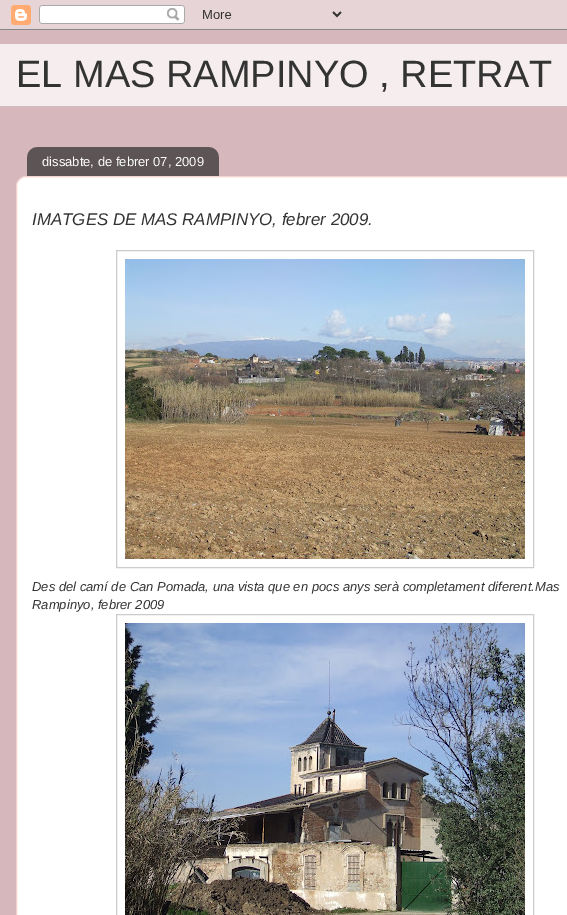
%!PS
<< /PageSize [567 915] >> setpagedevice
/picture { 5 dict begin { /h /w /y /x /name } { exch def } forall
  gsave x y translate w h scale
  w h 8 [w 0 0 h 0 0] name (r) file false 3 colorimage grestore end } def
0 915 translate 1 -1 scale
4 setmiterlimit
0.835 0.718 0.737 setrgbcolor
0 0 567 915 rectfill
(img1.rgb) 0 0 567 30 picture
0.961 0.929 0.933 setrgbcolor
0 44 567 62 rectfill
/LiberationSans-Regular [38 0 0 -38 0 0] selectfont
0.2 setgray
16 87 moveto (EL MAS RAMPINYO , RETRAT) show
1 setgray
newpath 26 176.5 moveto 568 176.5 lineto 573 176.5 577.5 181 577.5 186 curveto 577.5 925.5 lineto 16.5 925.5 lineto 16.5 186 lineto 16.5 181 21 176.5 26 176.5 curveto closepath gsave fill grestore
0.957 0.827 0.8 setrgbcolor
stroke
(img2.rgb) 27 147 192 29 picture
/LiberationSans-Regular [13 0 0 -13 0 0] selectfont
1 setgray
42 166 moveto (dissabte, de febrer 07, 2009) show
/LiberationSans-Italic [16.9 0 0 -16.9 0 0] selectfont
0.2 setgray
32 225 moveto (IMATGES DE MAS RAMPINYO, febrer 2009.) show
0.8 setgray
116.5 250.5 417 317 rectstroke
(img3.rgb) 125 259 400 300 picture
/LiberationSans-Italic [13 0 0 -13 0 0] selectfont
0.2 setgray
32 591 moveto (Des del camí de Can Pomada, una vista que en pocs anys serà completament diferent.Mas) show
32 609 moveto (Rampinyo, febrer 2009) show
0.8 setgray
116.5 614.5 417 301 rectstroke
(img4.rgb) 125 623 400 292 picture
showpage
